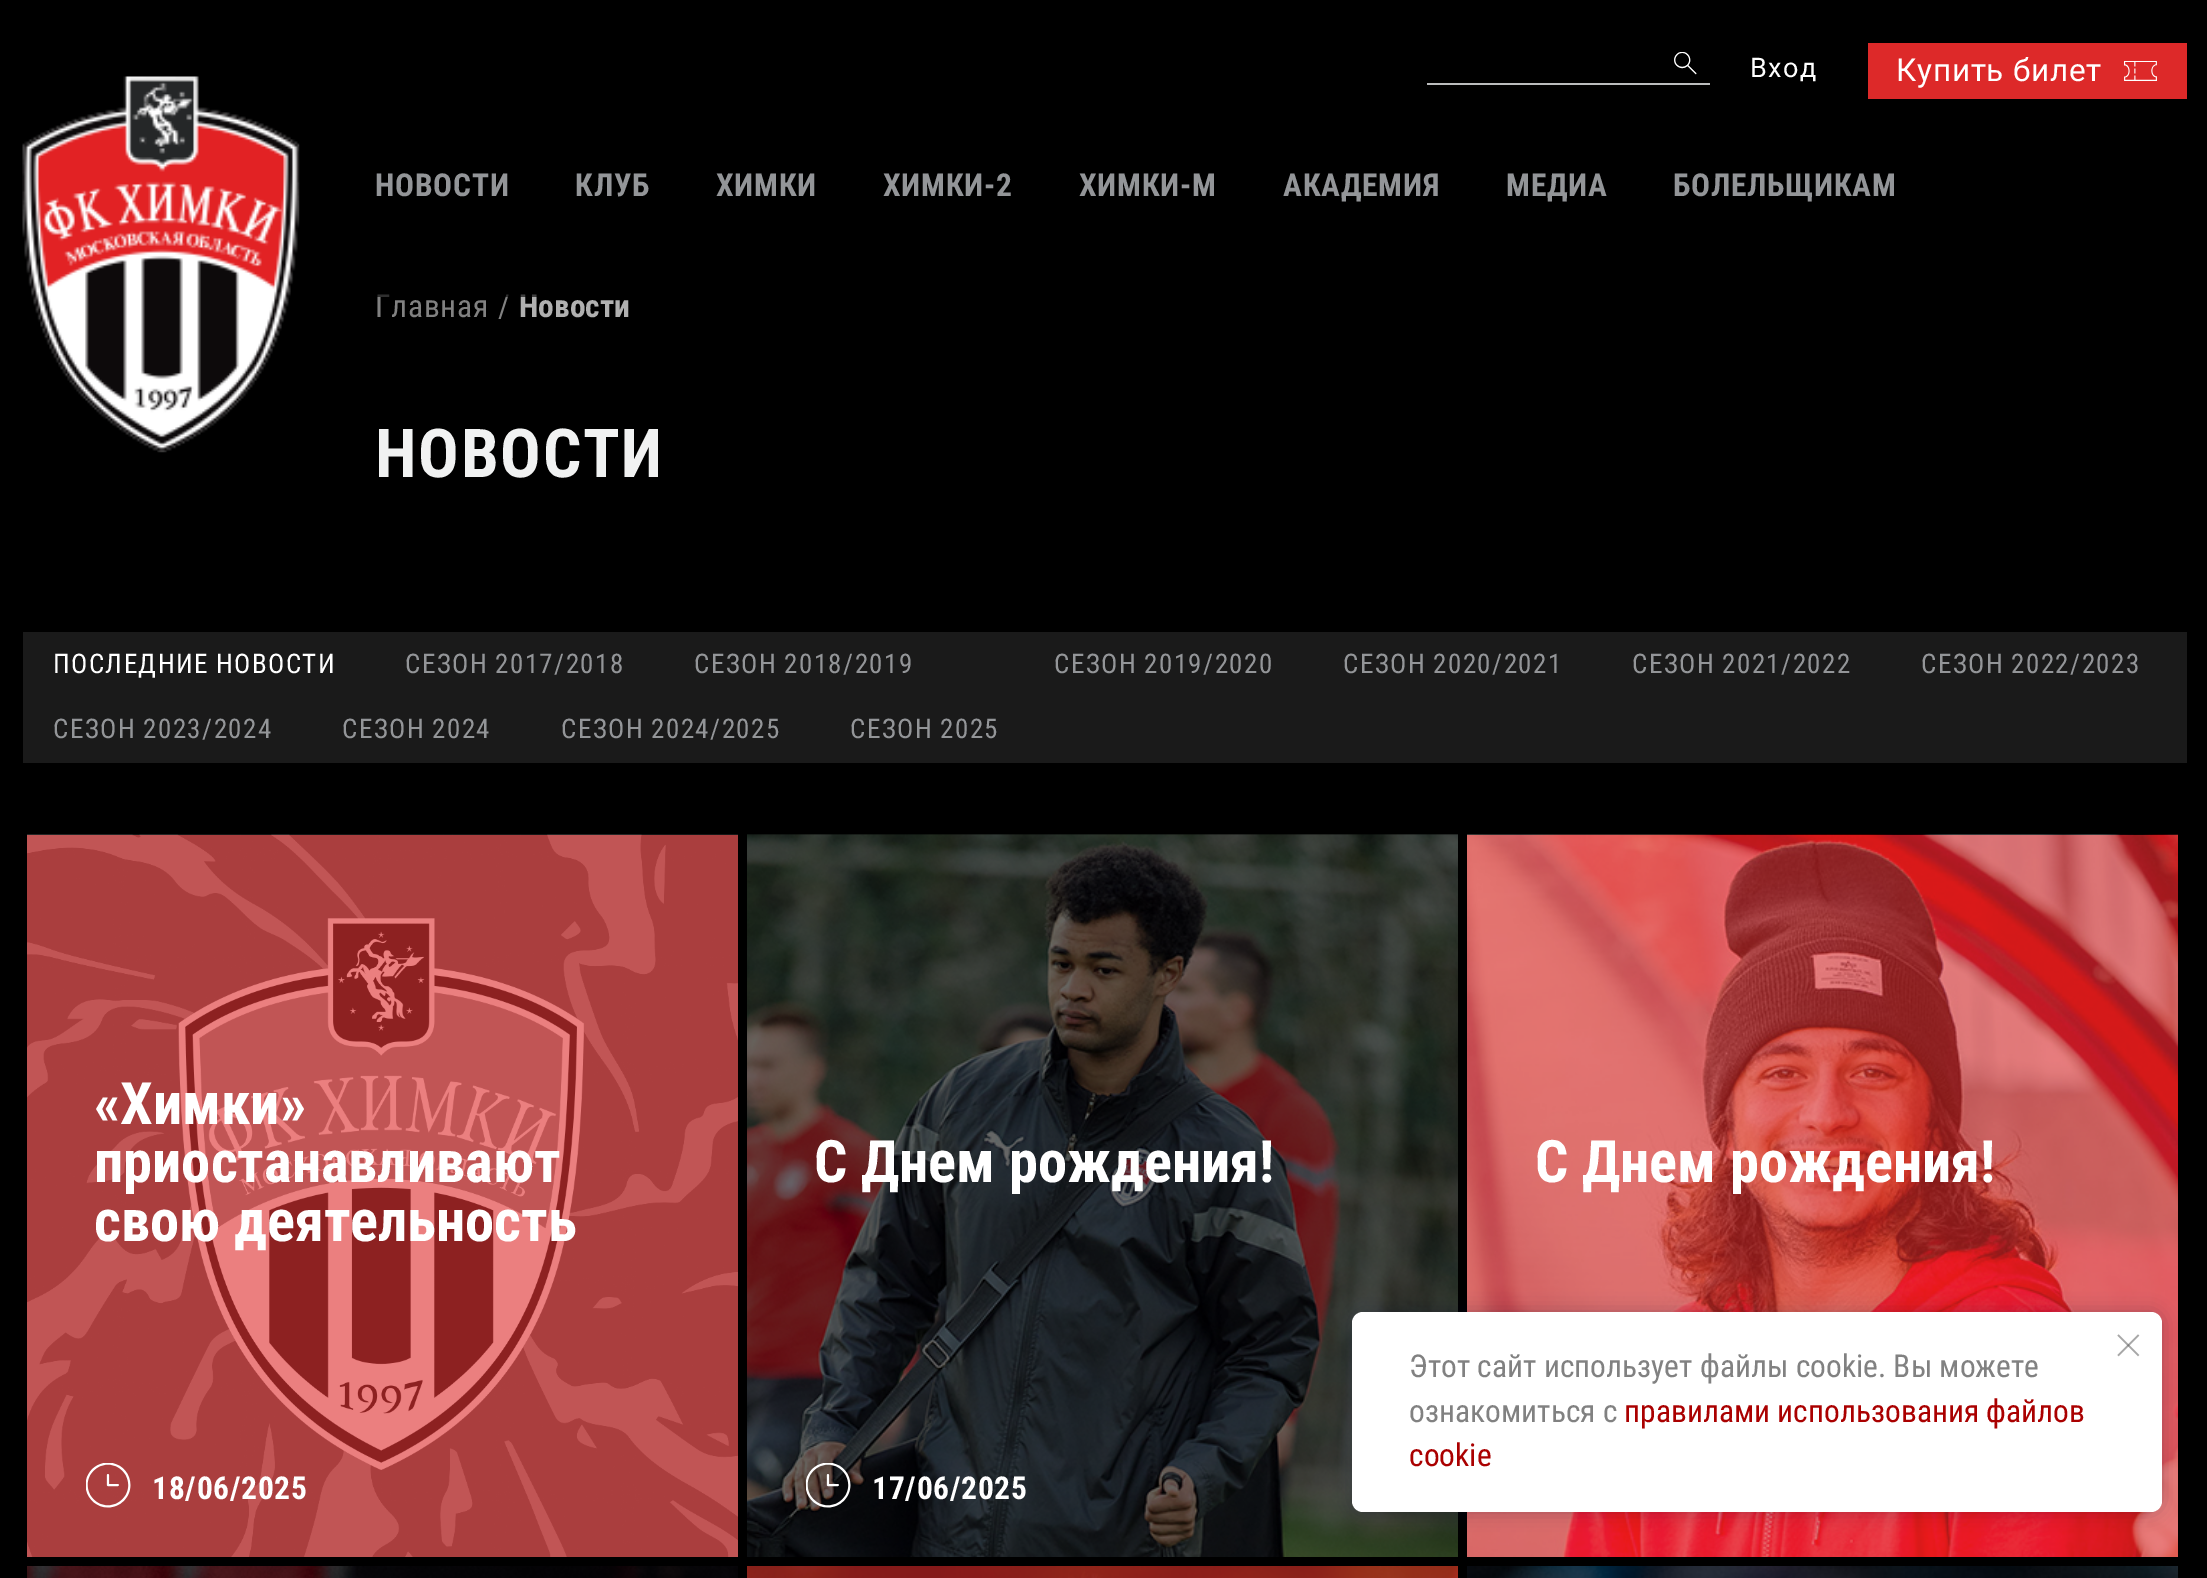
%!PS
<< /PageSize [2207 1578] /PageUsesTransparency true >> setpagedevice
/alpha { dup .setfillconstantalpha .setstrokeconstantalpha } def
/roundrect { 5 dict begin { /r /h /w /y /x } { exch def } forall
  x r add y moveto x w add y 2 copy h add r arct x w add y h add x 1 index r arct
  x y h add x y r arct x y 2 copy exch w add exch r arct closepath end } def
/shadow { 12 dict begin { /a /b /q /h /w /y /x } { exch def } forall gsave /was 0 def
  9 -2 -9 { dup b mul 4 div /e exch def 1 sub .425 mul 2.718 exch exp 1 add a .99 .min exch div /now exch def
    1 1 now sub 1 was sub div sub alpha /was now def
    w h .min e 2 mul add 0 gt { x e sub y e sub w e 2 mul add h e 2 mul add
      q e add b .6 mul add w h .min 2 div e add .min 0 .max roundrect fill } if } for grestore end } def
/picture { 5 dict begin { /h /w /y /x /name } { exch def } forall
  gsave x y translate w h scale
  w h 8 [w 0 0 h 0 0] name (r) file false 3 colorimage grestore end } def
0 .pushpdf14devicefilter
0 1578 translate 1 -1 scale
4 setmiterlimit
0 setgray
0 0 2207 1578 rectfill
(img1.rgb) 1674 52 23 23 picture
0.733 0.737 0.741 setrgbcolor
1427 83 283 2 rectfill
/Roboto-Regular [27 0 0 -27 0 0] selectfont
1 setgray
1750 77 moveto 1.4 0 (Вход) ashow
0.867 0.161 0.161 setrgbcolor
1868 43 319 56 rectfill
/Roboto-Regular [31.5 0 0 -31.5 0 0] selectfont
1 setgray
1896 81 moveto 0.75 0 (Купить билет) ashow
(img2.rgb) 2124 61 33 20 picture
(img3.rgb) 22 76 278 377 picture
/RobotoCondensed-Regular [31.5 0 0 -31.5 0 0] selectfont
0.506 setgray
375 317 moveto 0.75 0 (Главная) ashow
498 317 moveto 0.75 0 (/) ashow
/RobotoCondensed-Bold [31.5 0 0 -31.5 0 0] selectfont
0.69 setgray
519 317 moveto (Новости) show
0.64 alpha
0 setgray
377 294 160 3 rectfill
1 alpha
0.576 0.584 0.596 setrgbcolor
375 196 moveto 0.75 0 (НОВОСТИ) ashow
575 196 moveto 0.75 0 (КЛУБ) ashow
716 196 moveto 0.75 0 (ХИМКИ) ashow
883 196 moveto 0.75 0 (ХИМКИ-2) ashow
1079 196 moveto 0.75 0 (ХИМКИ-M) ashow
1283 196 moveto 0.75 0 (АКАДЕМИЯ) ashow
1506 196 moveto 0.75 0 (МЕДИА) ashow
1673 196 moveto 0.75 0 (БОЛЕЛЬЩИКАМ) ashow
/RobotoCondensed-Bold [67.5 0 0 -67.5 0 0] selectfont
0.945 0.949 0.949 setrgbcolor
375 477 moveto 1.75 0 (НОВОСТИ) ashow
0.102 setgray
23 632 2164 131 rectfill
/RobotoCondensed-Regular [27 0 0 -27 0 0] selectfont
1 setgray
53 673 moveto 1.4 0 (ПОСЛЕДНИЕ НОВОСТИ) ashow
0.576 0.584 0.596 setrgbcolor
405 673 moveto 1.4 0 (СЕЗОН 2017/2018) ashow
694 673 moveto 1.4 0 (СЕЗОН 2018/2019) ashow
1054 673 moveto 1.4 0 (СЕЗОН 2019/2020) ashow
1343 673 moveto 1.4 0 (СЕЗОН 2020/2021) ashow
1632 673 moveto 1.4 0 (СЕЗОН 2021/2022) ashow
1921 673 moveto 1.4 0 (СЕЗОН 2022/2023) ashow
53 738 moveto 1.4 0 (СЕЗОН 2023/2024) ashow
342 738 moveto 1.4 0 (СЕЗОН 2024) ashow
561 738 moveto 1.4 0 (СЕЗОН 2024/2025) ashow
850 738 moveto 1.4 0 (СЕЗОН 2025) ashow
(img4.rgb) 27 834 711 723 picture
/RobotoCondensed-Bold [58.5 0 0 -58.5 0 0] selectfont
1 setgray
94 1124 moveto («Химки») show
94 1182 moveto (приостанавливают) show
94 1241 moveto (свою деятельность) show
(img5.rgb) 86 1463 45 45 picture
/RobotoCondensed-Bold [31.5 0 0 -31.5 0 0] selectfont
152 1499 moveto 0.75 0 (18/06/2025) ashow
(img6.rgb) 747 834 711 723 picture
/RobotoCondensed-Bold [58.5 0 0 -58.5 0 0] selectfont
814 1182 moveto (С Днем рождения!) show
(img7.rgb) 806 1463 45 45 picture
/RobotoCondensed-Bold [31.5 0 0 -31.5 0 0] selectfont
872 1499 moveto 0.75 0 (17/06/2025) ashow
(img8.rgb) 1467 834 711 723 picture
/RobotoCondensed-Bold [58.5 0 0 -58.5 0 0] selectfont
1535 1182 moveto (С Днем рождения!) show
(img9.rgb) 27 1566 711 12 picture
(img10.rgb) 747 1566 711 12 picture
(img11.rgb) 1467 1566 711 12 picture
0 0.043 0.188 setrgbcolor
1352 1312 810 200 11 9 0.25 shadow
1 setgray
1352 1312 810 200 11 roundrect fill
(img12.rgb) 2117 1334 23 23 picture
/RobotoCondensed-Regular [31.5 0 0 -31.5 0 0] selectfont
0.506 setgray
1409 1377 moveto (Этот сайт использует файлы cookie. Вы можете) show
1409 1422 moveto (ознакомиться с) show
0.667 0 0 setrgbcolor
1624 1422 moveto (правилами использования файлов) show
1409 1466 moveto (cookie) show
.poppdf14devicefilter showpage
